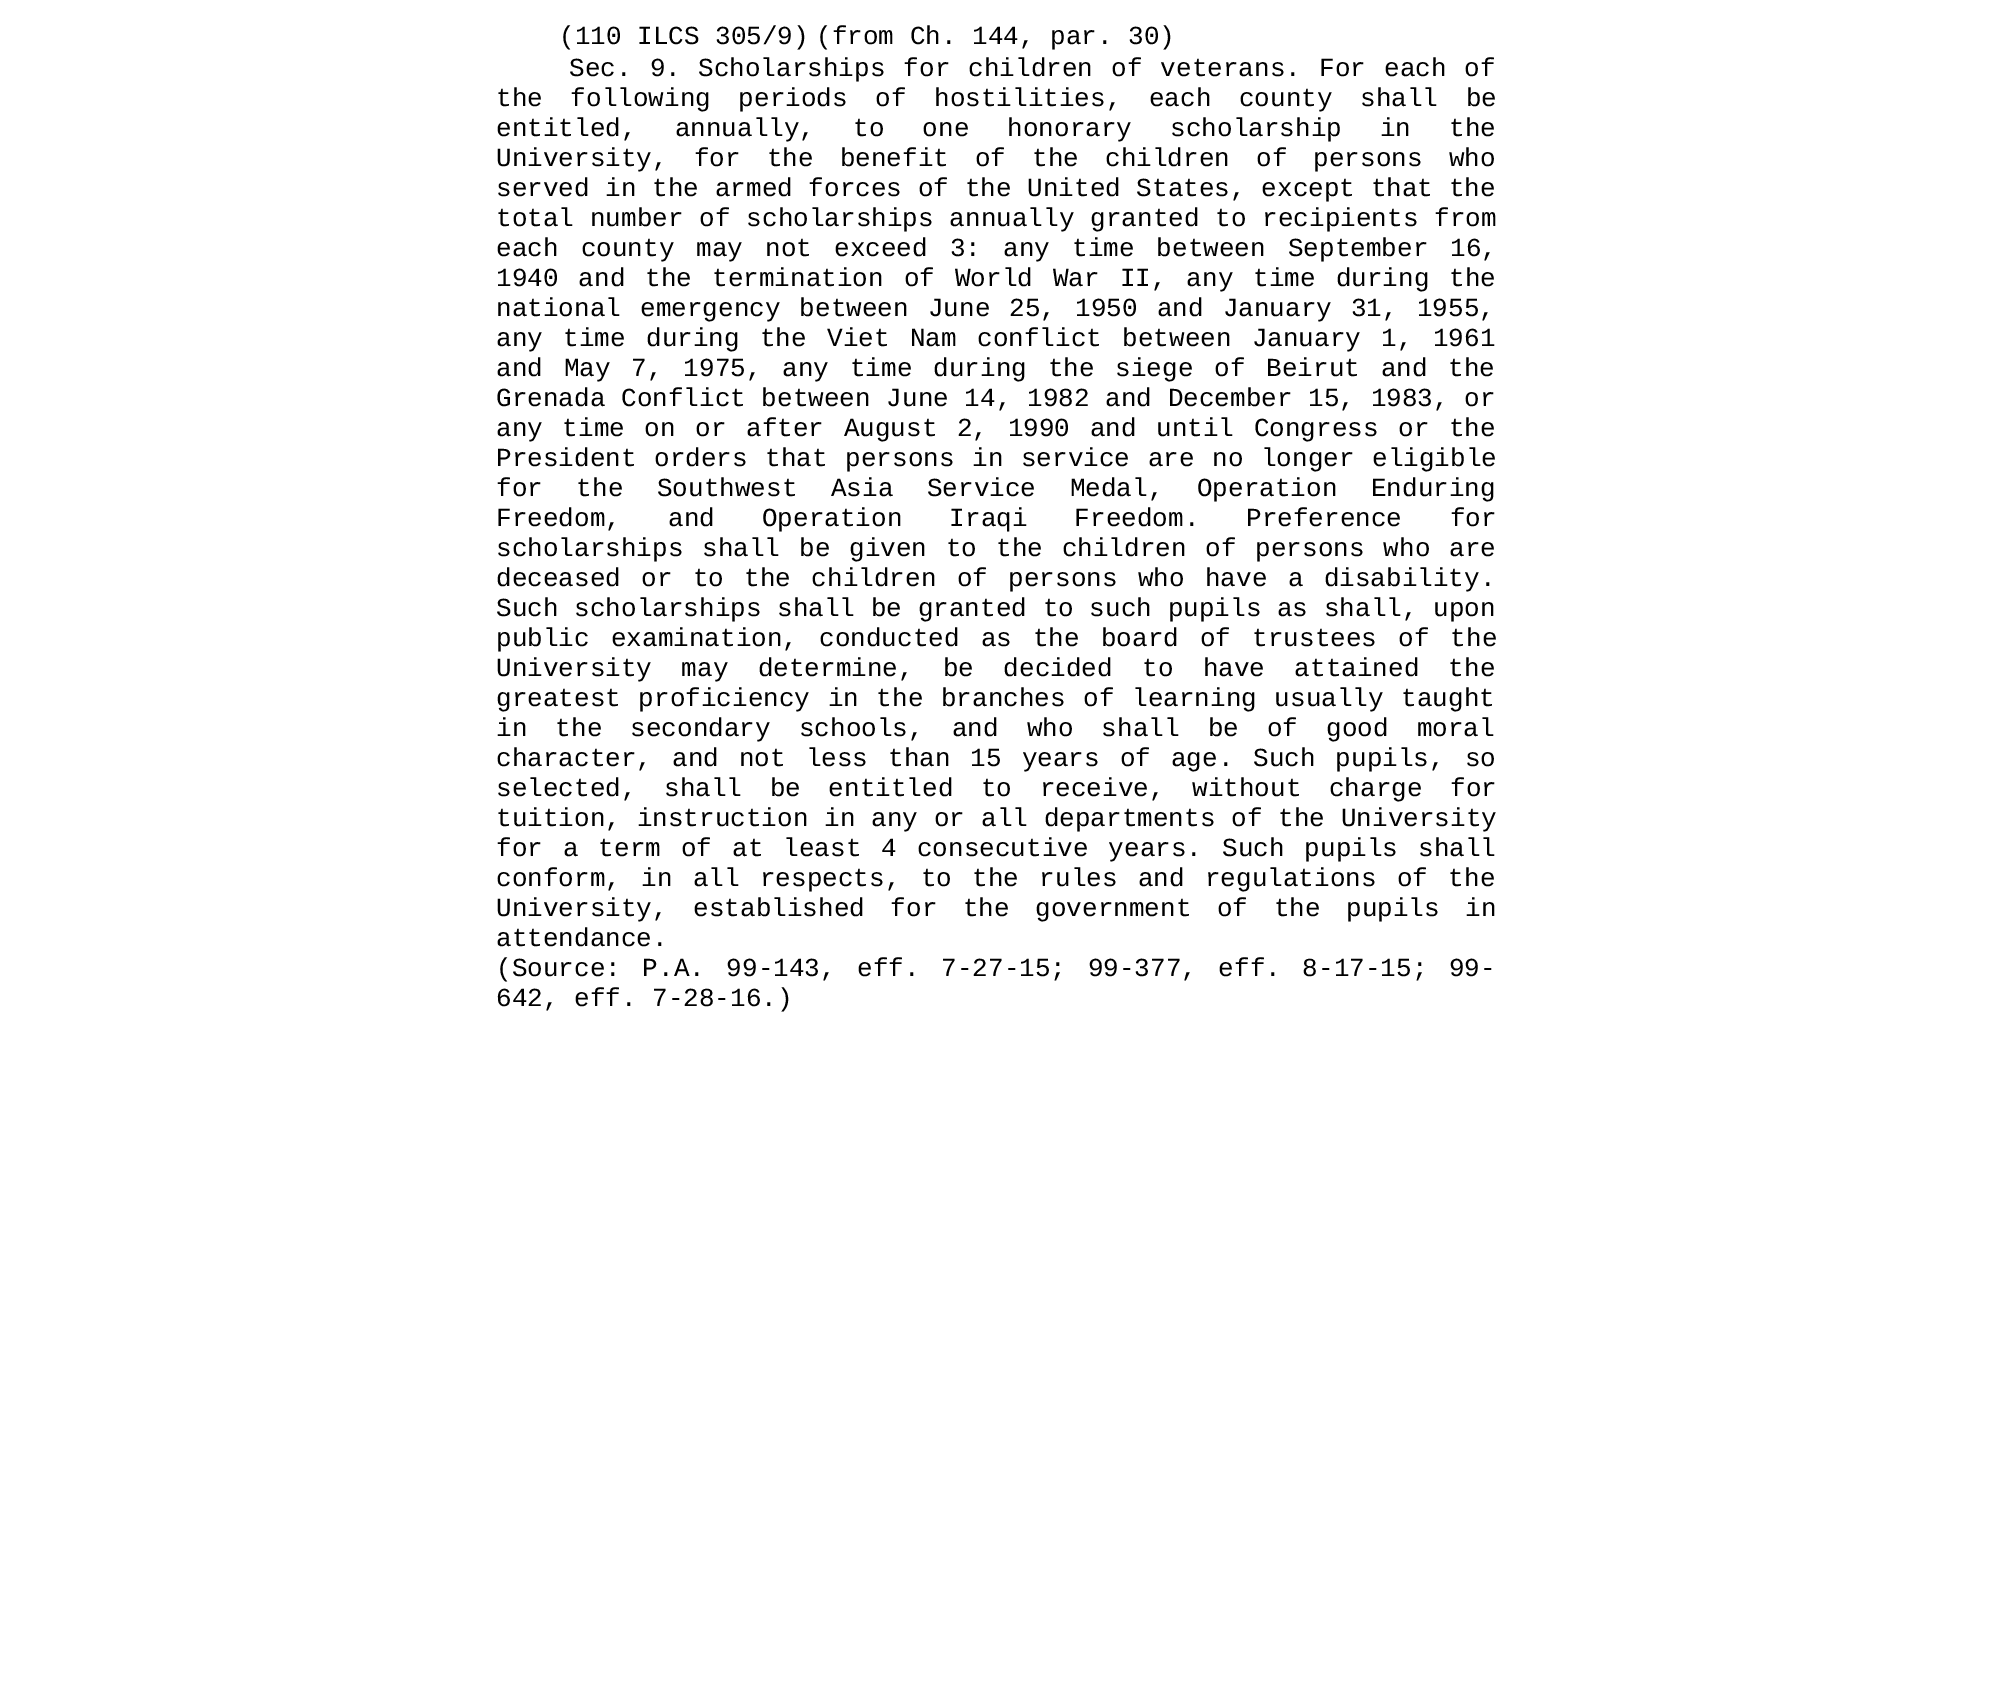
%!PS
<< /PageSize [1991 1698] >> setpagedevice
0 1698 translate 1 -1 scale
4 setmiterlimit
1 setgray
0 0 1991 1698 rectfill
/LiberationMono-Regular [26 0 0 -26 0 0] selectfont
0 setgray
559 44 moveto (\(110 ILCS 305/9\)) show
816 44 moveto (\(from Ch. 144, par. 30\)) show
569 76 moveto 2.5 0 32 (Sec. 9.) widthshow
698 76 moveto 2.5 0 32 (Scholarships for children of veterans.) widthshow
1319 76 moveto 2.5 0 32 (For each of) widthshow
496 106 moveto 12 0 32 (the following periods of hostilities, each county shall be) widthshow
496 136 moveto 22.5 0 32 (entitled, annually, to one honorary scholarship in the) widthshow
496 166 moveto 10.5 0 32 (University, for the benefit of the children of persons who) widthshow
496 196 moveto 0.1 0 32 (served in the armed forces of the United States, except that the) widthshow
496 226 moveto 0.25 0 32 (total number of scholarships annually granted to recipients from) widthshow
496 256 moveto 6.5 0 32 (each county may not exceed 3: any time between September 16,) widthshow
496 286 moveto 4.4 0 32 (1940 and the termination of World War II, any time during the) widthshow
496 316 moveto 3.5 0 32 (national emergency between June 25, 1950 and January 31, 1955,) widthshow
496 346 moveto 4.75 0 32 (any time during the Viet Nam conflict between January 1, 1961) widthshow
496 376 moveto 5.25 0 32 (and May 7, 1975, any time during the siege of Beirut and the) widthshow
496 406 moveto 0.1 0 32 (Grenada Conflict between June 14, 1982 and December 15, 1983, or) widthshow
496 436 moveto 4 0 32 (any time on or after August 2, 1990 and until Congress or the) widthshow
496 466 moveto 2 0 32 (President orders that persons in service are no longer eligible) widthshow
496 496 moveto 18 0 32 (for the Southwest Asia Service Medal, Operation Enduring) widthshow
496 526 moveto 31.5 0 32 (Freedom, and Operation Iraqi Freedom.) widthshow
1246 526 moveto 32 0 32 (Preference for) widthshow
496 556 moveto 3.25 0 32 (scholarships shall be given to the children of persons who are) widthshow
496 586 moveto 4.75 0 32 (deceased or to the children of persons who have a disability.) widthshow
496 616 moveto 0.1 0 32 (Such scholarships shall be granted to such pupils as shall, upon) widthshow
496 646 moveto 5.5 0 32 (public examination, conducted as the board of trustees of the) widthshow
496 676 moveto 13.75 0 32 (University may determine, be decided to have attained the) widthshow
496 706 moveto 2 0 32 (greatest proficiency in the branches of learning usually taught) widthshow
496 736 moveto 12.5 0 32 (in the secondary schools, and who shall be of good moral) widthshow
496 766 moveto 4.4 0 32 (character, and not less than 15 years of age.) widthshow
1253 766 moveto 4.4 0 32 (Such pupils, so) widthshow
496 796 moveto 12 0 32 (selected, shall be entitled to receive, without charge for) widthshow
496 826 moveto 0.25 0 32 (tuition, instruction in any or all departments of the University) widthshow
496 856 moveto 4.4 0 32 (for a term of at least 4 consecutive years.) widthshow
1222 856 moveto 4.4 0 32 (Such pupils shall) widthshow
496 886 moveto 4.75 0 32 (conform, in all respects, to the rules and regulations of the) widthshow
496 916 moveto 10 0 32 (University, established for the government of the pupils in) widthshow
496 946 moveto (attendance.) show
496 976 moveto 6 0 32 (\(Source: P.A. 99-143, eff. 7-27-15; 99-377, eff. 8-17-15; 99-) widthshow
496 1006 moveto (642, eff. 7-28-16.\)) show
showpage
